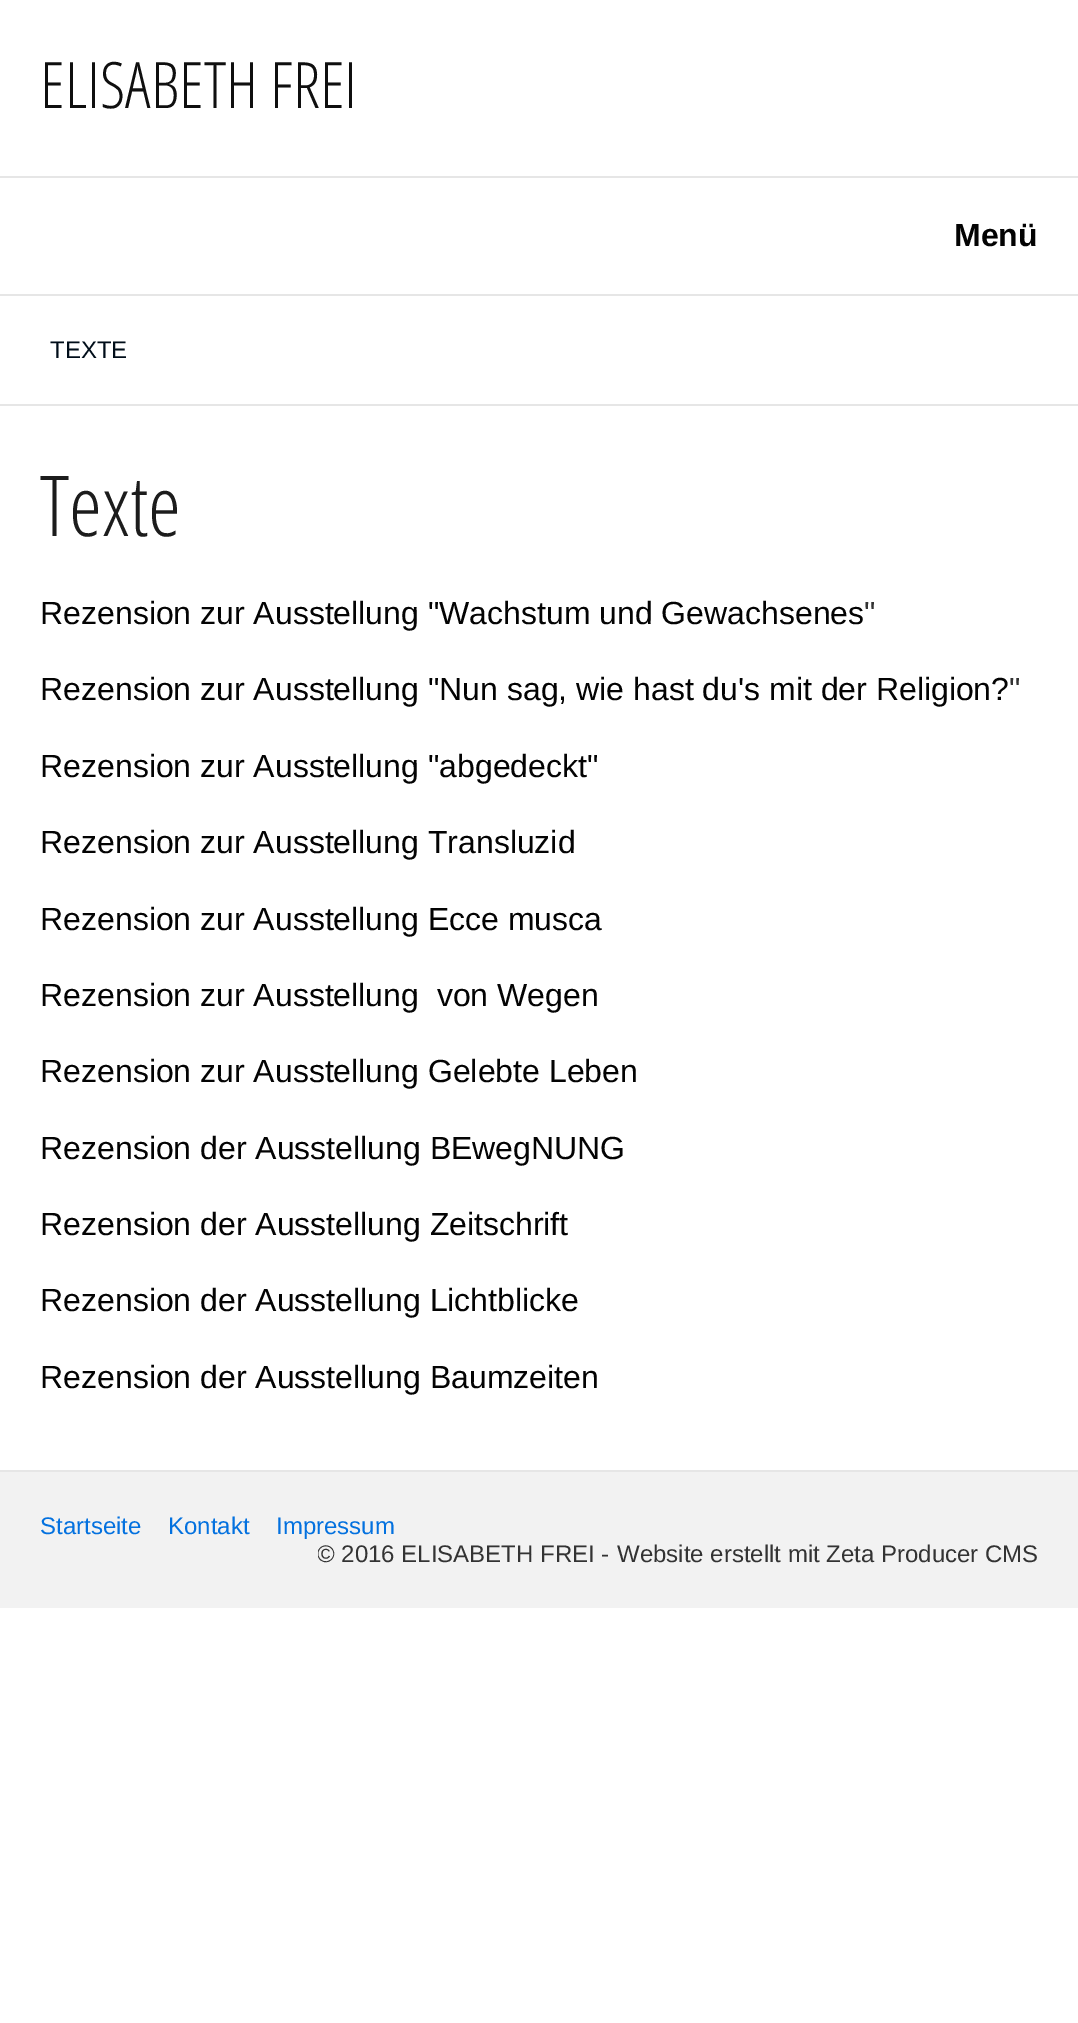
%!PS
<< /PageSize [1078 2023] >> setpagedevice
0 2023 translate 1 -1 scale
4 setmiterlimit
1 setgray
0 0 1078 2023 rectfill
0.902 setgray
0 176 1078 2 rectfill
/OpenSansCondensed-Light [64 0 0 -64 0 0] selectfont
0.059 setgray
40 108 moveto (ELISABETH FREI) show
0.902 setgray
0 294 1078 2 rectfill
/LiberationSans-Bold [32 0 0 -32 0 0] selectfont
0.012 setgray
954 246 moveto (Menü) show
0.902 setgray
0 404 1078 2 rectfill
/LiberationSans-Regular [24 0 0 -24 0 0] selectfont
0 0.051 0.098 setrgbcolor
50 358 moveto (TEXTE) show
0.902 setgray
0 1470 1078 2 rectfill
/OpenSansCondensed-Light [84 0 0 -84 0 0] selectfont
0.11 setgray
40 536 moveto (Texte) show
/LiberationSans-Regular [32 0 0 -32 0 0] selectfont
0.012 setgray
40 624 moveto (Rezension zur Ausstellung "Wachstum und Gewachsenes) show
0.2 setgray
864 624 moveto (") show
0.012 setgray
40 700 moveto (Rezension zur Ausstellung "Nun sag, wie hast du's mit der Religion?) show
0.2 setgray
1009 700 moveto (") show
0.012 setgray
40 777 moveto (Rezension zur Ausstellung "abgedeckt") show
40 853 moveto (Rezension zur Ausstellung Transluzid) show
40 930 moveto (Rezension zur Ausstellung Ecce musca) show
40 1006 moveto (Rezension zur Ausstellung  von Wegen) show
40 1082 moveto (Rezension zur Ausstellung Gelebte Leben) show
40 1159 moveto (Rezension der Ausstellung BEwegNUNG) show
40 1235 moveto (Rezension der Ausstellung Zeitschrift) show
40 1311 moveto (Rezension der Ausstellung Lichtblicke) show
40 1388 moveto (Rezension der Ausstellung Baumzeiten) show
0.949 setgray
0 1472 1078 136 rectfill
/LiberationSans-Regular [24 0 0 -24 0 0] selectfont
0.012 0.443 0.875 setrgbcolor
40 1534 moveto (Startseite) show
168 1534 moveto (Kontakt) show
276 1534 moveto (Impressum) show
gsave
318 1540 720 28 rectclip
0.2 setgray
317 1562 moveto (© 2016 ELISABETH FREI -) show
grestore
0.2 setgray
617 1562 moveto (Website erstellt mit Zeta Producer CMS) show
showpage
